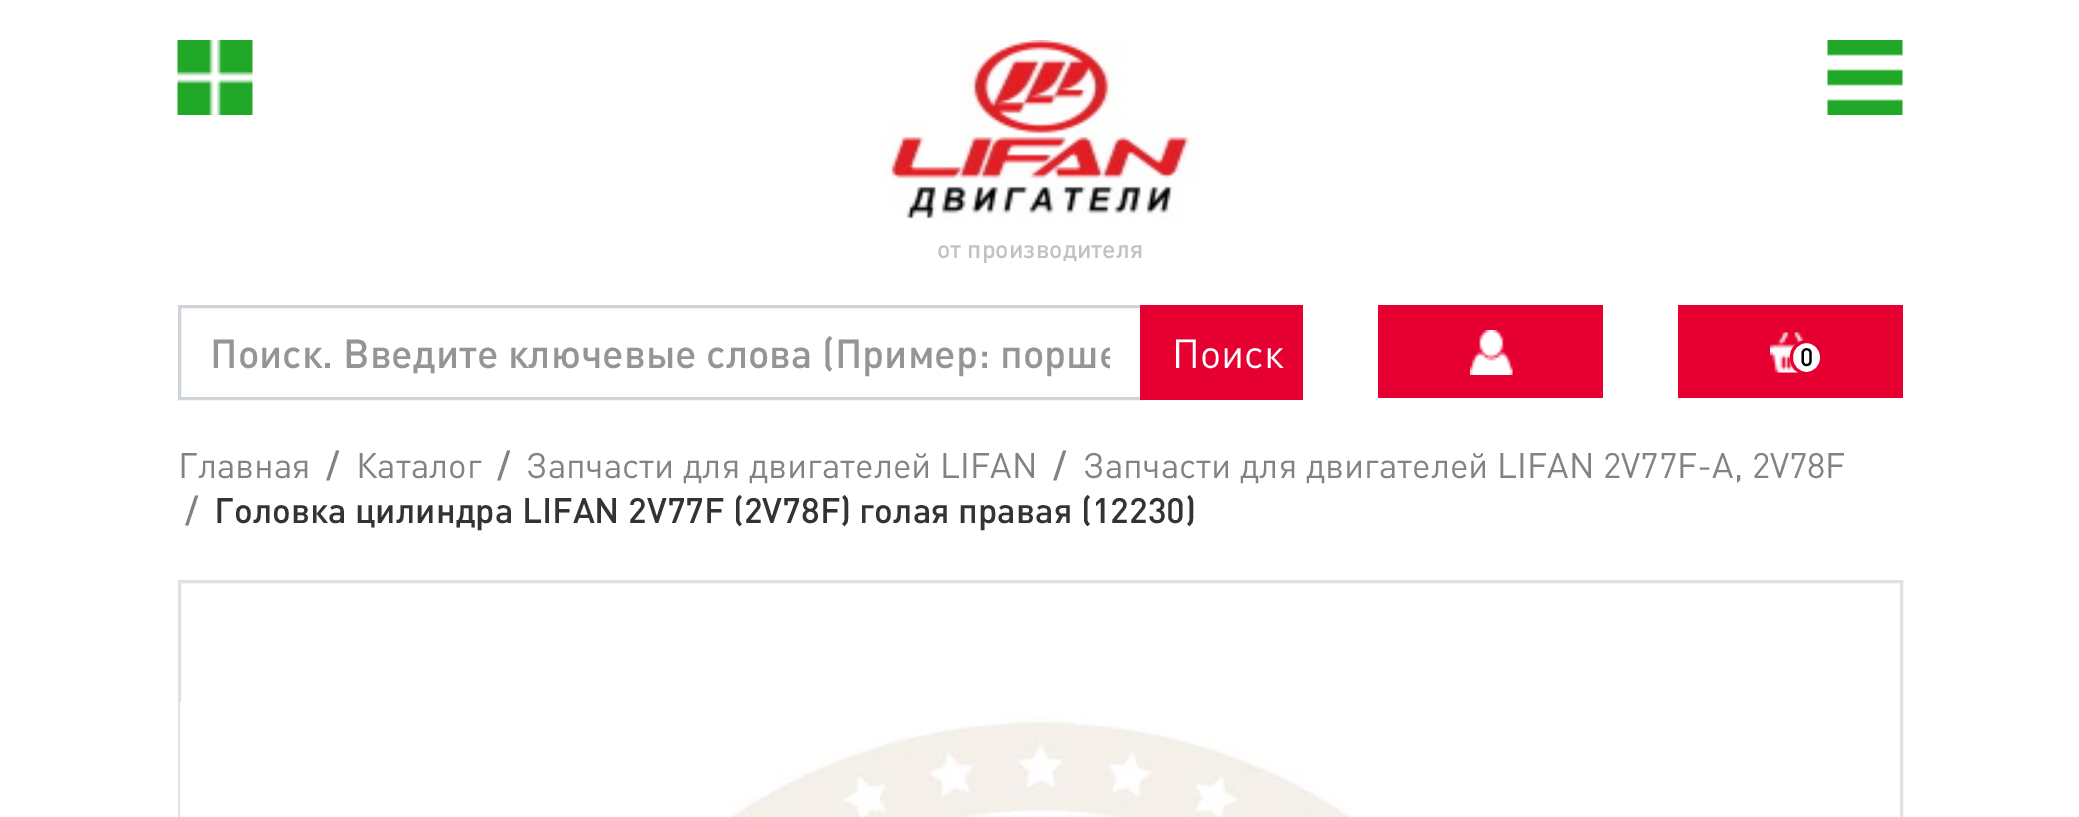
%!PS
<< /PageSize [2079 817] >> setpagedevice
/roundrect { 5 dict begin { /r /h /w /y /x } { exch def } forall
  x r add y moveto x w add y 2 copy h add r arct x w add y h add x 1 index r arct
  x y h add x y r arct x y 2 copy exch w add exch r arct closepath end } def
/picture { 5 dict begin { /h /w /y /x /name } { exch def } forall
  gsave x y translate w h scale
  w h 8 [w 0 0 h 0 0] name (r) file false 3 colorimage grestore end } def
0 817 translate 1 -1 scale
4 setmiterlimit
1 setgray
0 0 2079 817 rectfill
(img1.rgb) 177 40 76 75 picture
(img2.rgb) 1827 40 76 75 picture
(img3.rgb) 882 40 318 179 picture
/DIN-Medium [25 0 0 -25 0 0] selectfont
0.761 setgray
937 258 moveto (от производителя) show
0.808 0.831 0.855 setrgbcolor
3 setlinewidth
179.5 306.5 962 92 rectstroke
gsave
210 325 900 53 rectclip
/DIN-Medium [40 0 0 -40 0 0] selectfont
0.584 0.584 0.592 setrgbcolor
210 368 moveto (Поиск. Введите ключевые слова \(Пример: порше) show
grestore
0.898 0 0.192 setrgbcolor
1140 305 163 95 rectfill
/DIN-Regular [40 0 0 -40 0 0] selectfont
1 setgray
1172 368 moveto (Поиск) show
0.898 0 0.192 setrgbcolor
1378 305 225 93 rectfill
(img4.rgb) 1470 330 43 45 picture
1678 305 225 93 rectfill
(img5.rgb) 1770 332 35 41 picture
1 setgray
1791.5 341.5 30 32 15 roundrect gsave fill grestore
0.898 0 0.192 setrgbcolor
stroke
/DIN-Medium [25 0 0 -25 0 0] selectfont
0 setgray
1800 366 moveto (0) show
/DIN-Regular [35 0 0 -35 0 0] selectfont
0.51 setgray
178 478 moveto (Главная) show
/DIN-Medium [35 0 0 -35 0 0] selectfont
326 478 moveto (/) show
/DIN-Regular [35 0 0 -35 0 0] selectfont
356 478 moveto (Каталог) show
/DIN-Medium [35 0 0 -35 0 0] selectfont
497 478 moveto (/) show
/DIN-Regular [35 0 0 -35 0 0] selectfont
526 478 moveto (Запчасти для двигателей LIFAN) show
/DIN-Medium [35 0 0 -35 0 0] selectfont
1053 478 moveto (/) show
/DIN-Regular [35 0 0 -35 0 0] selectfont
1083 478 moveto (Запчасти для двигателей LIFAN 2V77F-A, 2V78F) show
/DIN-Medium [35 0 0 -35 0 0] selectfont
185 523 moveto (/) show
0.2 setgray
214 523 moveto (Головка цилиндра LIFAN 2V77F \(2V78F\) голая правая \(12230\)) show
0.871 0.886 0.902 setrgbcolor
179.5 581.5 1722 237 rectstroke
(img6.rgb) 180 702 1170 115 picture
showpage
